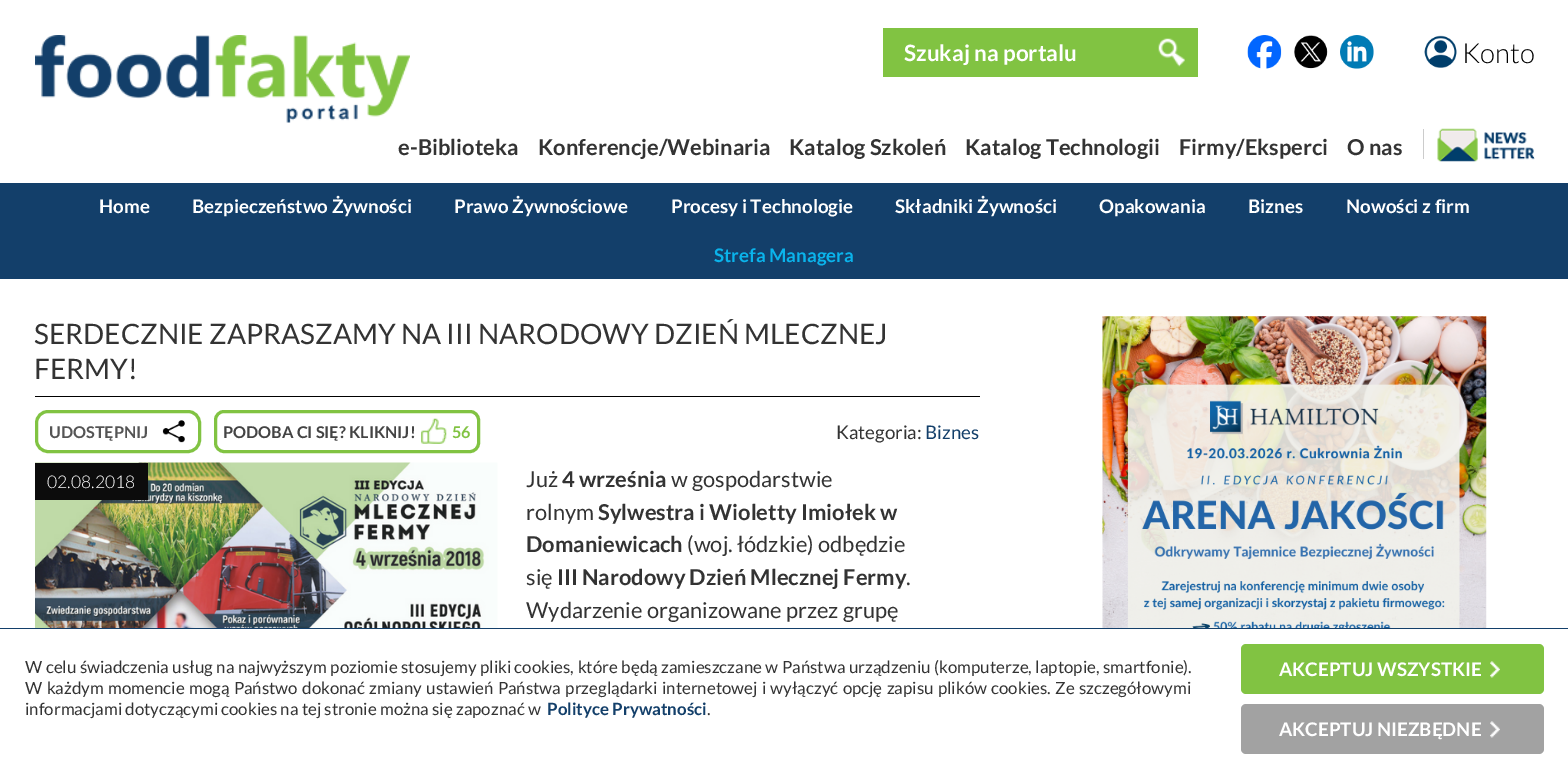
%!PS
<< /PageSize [1568 768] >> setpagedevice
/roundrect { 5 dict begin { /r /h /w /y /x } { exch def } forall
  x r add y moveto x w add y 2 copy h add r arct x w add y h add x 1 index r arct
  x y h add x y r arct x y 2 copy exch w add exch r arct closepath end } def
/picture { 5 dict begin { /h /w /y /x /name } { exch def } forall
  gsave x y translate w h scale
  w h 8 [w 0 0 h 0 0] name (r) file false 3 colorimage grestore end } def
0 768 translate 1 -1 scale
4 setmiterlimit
1 setgray
0 0 1568 768 rectfill
(img1.rgb) 35 35 375 88 picture
0.506 0.765 0.259 setrgbcolor
883 28 265 49 rectfill
/Lato-Bold [22.5 0 0 -22.5 0 0] selectfont
1 setgray
904 61 moveto (Szukaj na portalu) show
0.506 0.765 0.259 setrgbcolor
1148 28 50 49 rectfill
(img2.rgb) 1158 38 27 29 picture
(img3.rgb) 1247 35 35 34 picture
(img4.rgb) 1294 35 34 34 picture
(img5.rgb) 1340 35 34 34 picture
(img6.rgb) 1424 35 33 33 picture
/Lato-Light [27.5 0 0 -27.5 0 0] selectfont
0 setgray
1462 63 moveto (Konto) show
/Lato-Bold [21.9 0 0 -21.9 0 0] selectfont
0.2 setgray
398 155 moveto (e-Biblioteka) show
538 155 moveto (Konferencje/Webinaria) show
789 155 moveto (Katalog Szkoleń) show
965 155 moveto (Katalog Technologii) show
1179 155 moveto (Firmy/Eksperci) show
1347 155 moveto (O nas) show
0.8 setgray
1423 129 1 30 rectfill
(img7.rgb) 1437 128 98 34 picture
0.075 0.247 0.416 setrgbcolor
0 183 1568 96 rectfill
/Lato-Bold [18.75 0 0 -18.75 0 0] selectfont
1 setgray
99 213 moveto (Home) show
192 213 moveto (Bezpieczeństwo Żywności) show
454 213 moveto (Prawo Żywnościowe) show
671 213 moveto (Procesy i Technologie) show
895 213 moveto (Składniki Żywności) show
1099 213 moveto (Opakowania) show
1248 213 moveto (Biznes) show
1346 213 moveto (Nowości z firm) show
0.039 0.702 0.922 setrgbcolor
714 262 moveto (Strefa Managera) show
0 setgray
35 396 945 1 rectfill
/Lato-Regular [28.1 0 0 -28.1 0 0] selectfont
0.2 setgray
34 344 moveto (SERDECZNIE ZAPRASZAMY NA III NARODOWY DZIEŃ MLECZNEJ) show
34 379 moveto (FERMY!) show
0.506 0.765 0.259 setrgbcolor
3 setlinewidth
36.5 411.5 163 40 11.5 roundrect stroke
/Lato-Bold [16.25 0 0 -16.25 0 0] selectfont
0.333 setgray
49 438 moveto (UDOSTĘPNIJ) show
(img8.rgb) 162 420 23 23 picture
0.506 0.765 0.259 setrgbcolor
215.5 411.5 263 40 8.5 roundrect stroke
0.267 setgray
223 438 moveto (PODOBA CI SIĘ? KLIKNIJ!) show
(img9.rgb) 421 418 26 26 picture
0.506 0.765 0.259 setrgbcolor
452 438 moveto (56) show
/Lato-Regular [18.75 0 0 -18.75 0 0] selectfont
0.2 setgray
836 439 moveto (Kategoria:) show
0.075 0.247 0.416 setrgbcolor
925 439 moveto (Biznes) show
(img10.rgb) 35 462 463 166 picture
0.047 setgray
35 463 113 37 rectfill
/Lato-Light [17.5 0 0 -17.5 0 0] selectfont
1 setgray
47 488 moveto (02.08.2018) show
/Lato-Regular [21.9 0 0 -21.9 0 0] selectfont
0.2 setgray
526 487 moveto (Już) show
/Lato-Bold [21.9 0 0 -21.9 0 0] selectfont
562 487 moveto (4 września) show
/Lato-Regular [21.9 0 0 -21.9 0 0] selectfont
671 487 moveto (w gospodarstwie) show
526 520 moveto (rolnym) show
/Lato-Bold [21.9 0 0 -21.9 0 0] selectfont
598 520 moveto (Sylwestra i Wioletty Imiołek w) show
526 552 moveto (Domaniewicach) show
/Lato-Regular [21.9 0 0 -21.9 0 0] selectfont
687 552 moveto (\(woj. łódzkie\) odbędzie) show
526 585 moveto (się) show
/Lato-Bold [21.9 0 0 -21.9 0 0] selectfont
557 585 moveto (III Narodowy Dzień Mlecznej Fermy) show
/Lato-Regular [21.9 0 0 -21.9 0 0] selectfont
906 585 moveto (.) show
526 618 moveto (Wydarzenie organizowane przez grupę) show
(img11.rgb) 1102 316 385 312 picture
0.075 0.247 0.416 setrgbcolor
0 628 1568 1 rectfill
/Lato-Regular [16.88 0 0 -16.88 0 0] selectfont
0.2 setgray
25 673 moveto 0.25 0 32 (W celu świadczenia usług na najwyższym poziomie stosujemy pliki cookies, które będą zamieszczane w Państwa urządzeniu \(komputerze, laptopie, smartfonie\).) widthshow
25 694 moveto 1.1 0 32 (W każdym momencie mogą Państwo dokonać zmiany ustawień Państwa przeglądarki internetowej i wyłączyć opcję zapisu plików cookies. Ze szczegółowymi) widthshow
25 715 moveto (informacjami dotyczącymi cookies na tej stronie można się zapoznać w) show
/Lato-Bold [16.88 0 0 -16.88 0 0] selectfont
0.075 0.247 0.416 setrgbcolor
547 715 moveto (Polityce Prywatności) show
/Lato-Regular [16.88 0 0 -16.88 0 0] selectfont
0.2 setgray
707 715 moveto (.) show
0.506 0.765 0.259 setrgbcolor
1241 644 303 50 5 roundrect fill
(img12.rgb) 1490 661 10 17 picture
/Lato-Bold [18.75 0 0 -18.75 0 0] selectfont
1 setgray
1279 676 moveto (AKCEPTUJ WSZYSTKIE) show
0.635 setgray
1241 704 303 50 5 roundrect fill
(img13.rgb) 1490 721 10 17 picture
1 setgray
1279 736 moveto (AKCEPTUJ NIEZBĘDNE) show
showpage
